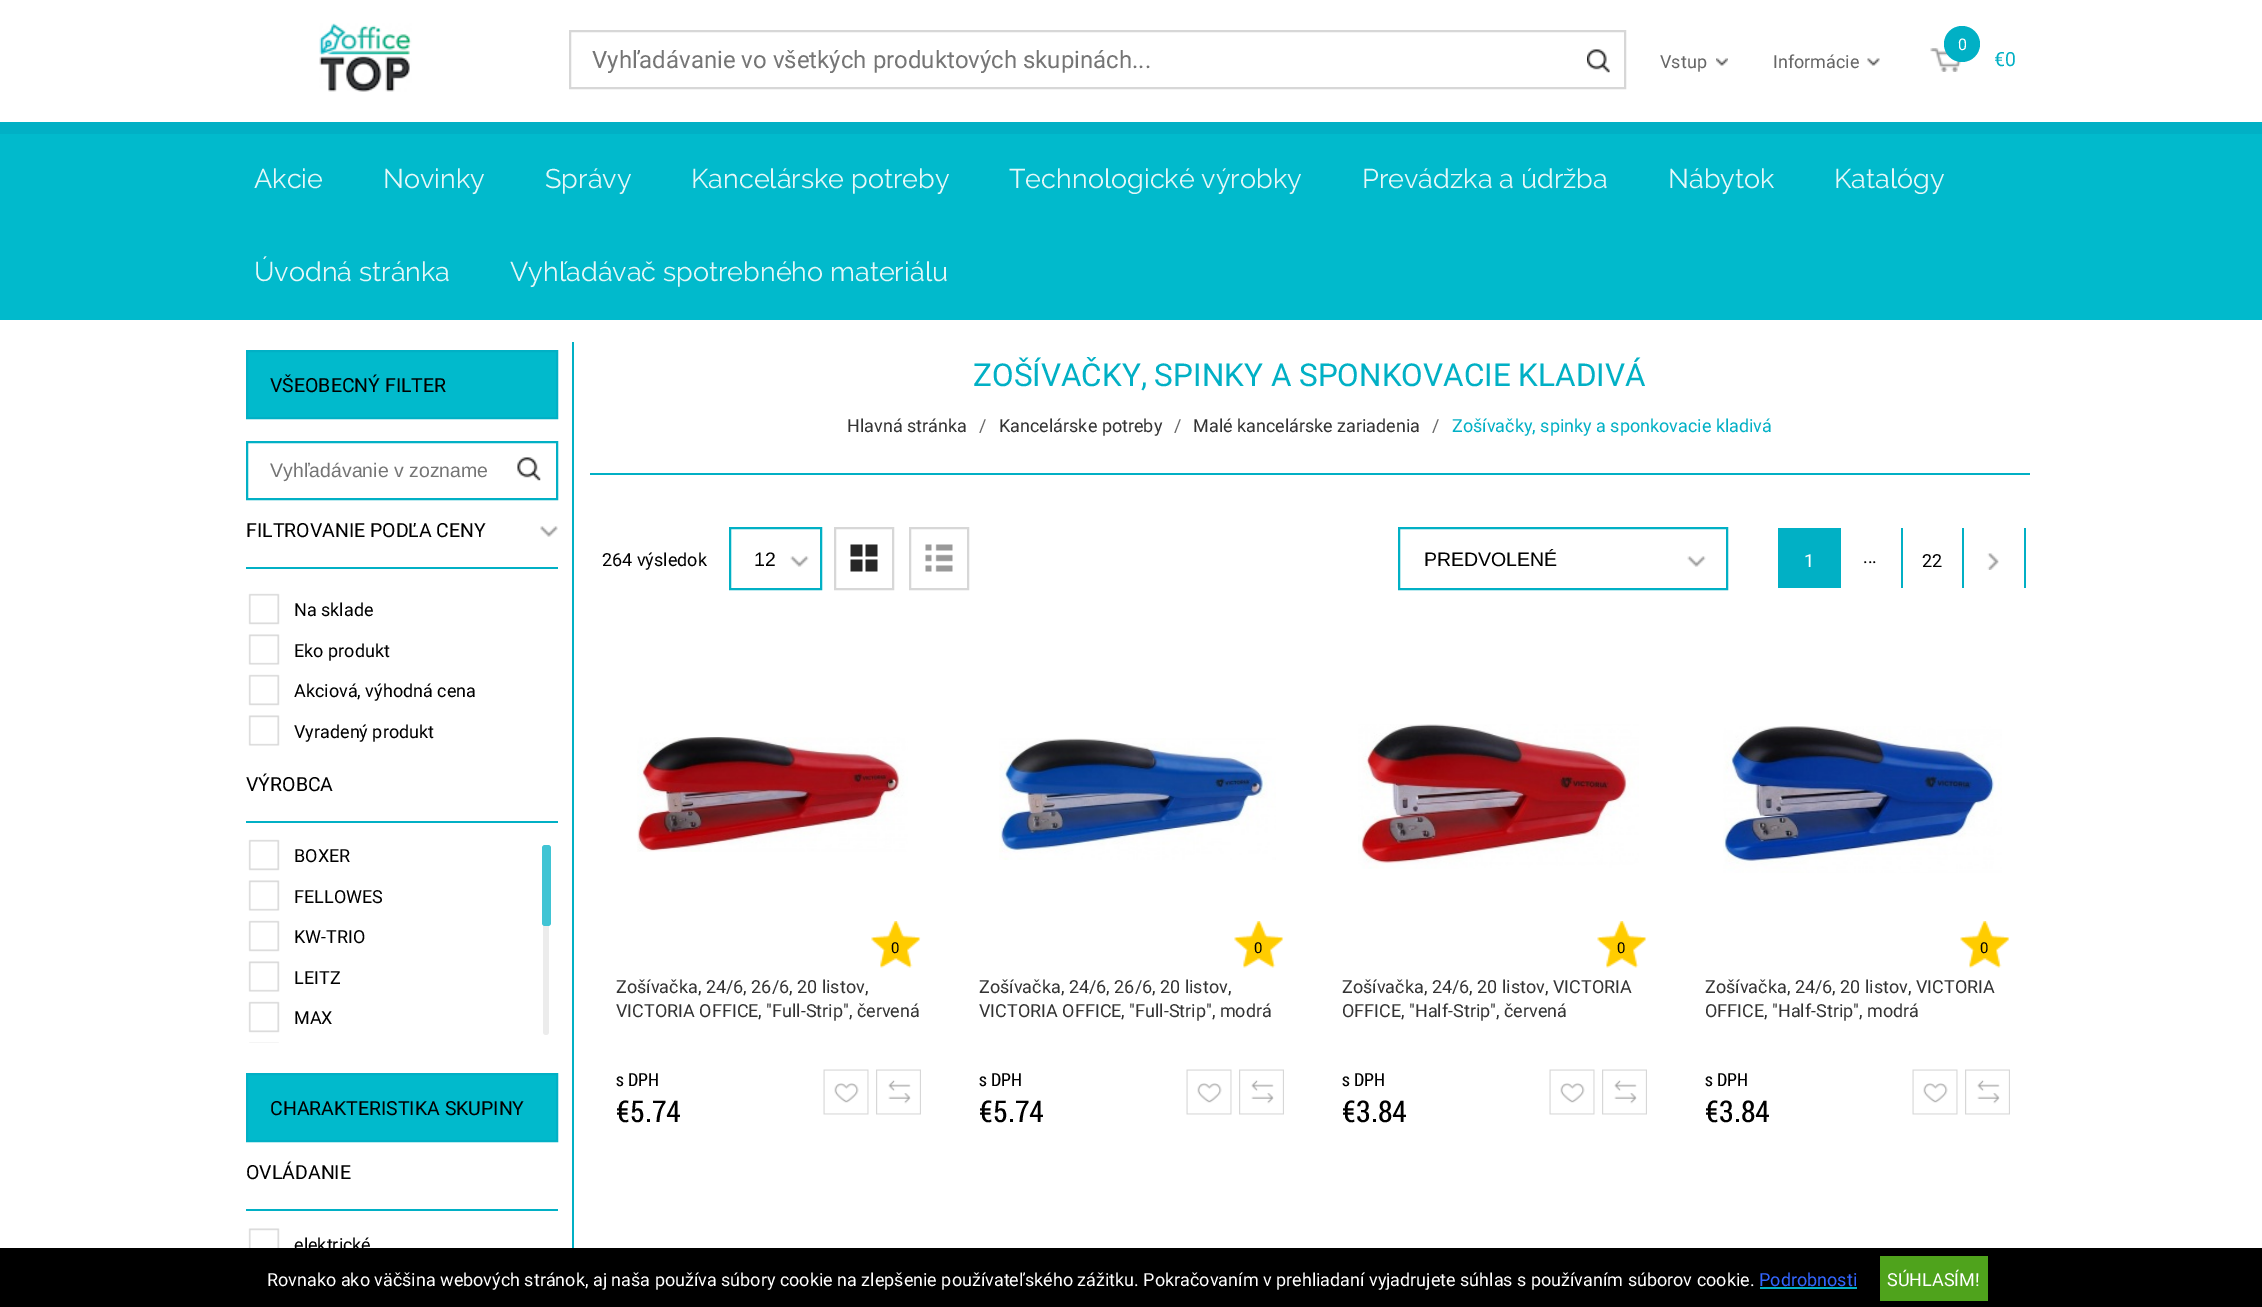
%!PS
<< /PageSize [2262 1307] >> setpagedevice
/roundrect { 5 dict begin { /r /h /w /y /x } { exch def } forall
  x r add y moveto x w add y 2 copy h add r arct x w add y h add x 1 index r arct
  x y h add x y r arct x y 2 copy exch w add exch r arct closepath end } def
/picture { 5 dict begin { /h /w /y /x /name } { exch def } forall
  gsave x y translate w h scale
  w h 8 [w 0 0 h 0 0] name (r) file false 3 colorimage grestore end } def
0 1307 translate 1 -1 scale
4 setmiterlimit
1 setgray
0 0 2262 1307 rectfill
0.004 0.69 0.773 setrgbcolor
0 122 2262 12 rectfill
(img1.rgb) 319 23 93 69 picture
0.843 setgray
2 setlinewidth
570 31 1055 57 rectstroke
/Roboto-Regular [24 0 0 -24 0 0] selectfont
0.459 setgray
592 68 moveto (Vyhľadávanie vo všetkých produktových skupinách...) show
(img2.rgb) 1587 49 23 24 picture
/Roboto-Regular [18 0 0 -18 0 0] selectfont
0.4 setgray
1660 68 moveto (Vstup) show
(img3.rgb) 1716 58 12 8 picture
1773 68 moveto (Informácie) show
(img4.rgb) 1867 58 13 8 picture
(img5.rgb) 1930 48 31 24 picture
0.004 0.69 0.773 setrgbcolor
newpath 1962 44 18 0 360 arc closepath fill
/Roboto-Regular [16 0 0 -16 0 0] selectfont
1 setgray
1958 50 moveto (0) show
/Roboto-Regular [19.5 0 0 -19.5 0 0] selectfont
0.004 0.69 0.773 setrgbcolor
1994 66 moveto (€0) show
0.004 0.729 0.8 setrgbcolor
0 134 2262 186 rectfill
/Raleway-Regular [27 0 0 -27 0 0] selectfont
0.898 0.973 0.976 setrgbcolor
254 188 moveto (Akcie) show
383 188 moveto (Novinky) show
545 188 moveto (Správy) show
691 188 moveto (Kancelárske potreby) show
1009 188 moveto (Technologické výrobky) show
1362 188 moveto (Prevádzka a údržba) show
1668 188 moveto (Nábytok) show
1834 188 moveto (Katalógy) show
254 281 moveto (Úvodná stránka) show
510 281 moveto (Vyhľadávač spotrebného materiálu) show
0.004 0.729 0.8 setrgbcolor
newpath 247 351 moveto 557 351 lineto 557 418 lineto 247 418 lineto closepath gsave fill grestore
0.004 0.69 0.773 setrgbcolor
stroke
/Roboto-Regular [19.5 0 0 -19.5 0 0] selectfont
0 setgray
270 392 moveto (VŠEOBECNÝ FILTER) show
0.004 0.69 0.773 setrgbcolor
247 442 310 57 rectstroke
/LiberationSans-Regular [19.5 0 0 -19.5 0 0] selectfont
0.459 setgray
270 477 moveto (Vyhľadávanie v zozname) show
(img6.rgb) 517 457 24 24 picture
0.004 0.69 0.773 setrgbcolor
246 567 312 2 rectfill
/Roboto-Regular [19.5 0 0 -19.5 0 0] selectfont
0 setgray
246 537 moveto (FILTROVANIE PODĽA CENY) show
(img7.rgb) 540 526 18 11 picture
(img8.rgb) 248 593 32 32 picture
/Roboto-Regular [18 0 0 -18 0 0] selectfont
294 616 moveto (Na sklade) show
(img9.rgb) 248 634 32 31 picture
294 657 moveto (Eko produkt) show
(img8.rgb) 248 674 32 32 picture
294 697 moveto (Akciová, výhodná cena) show
(img9.rgb) 248 715 32 31 picture
294 738 moveto (Vyradený produkt) show
0.004 0.69 0.773 setrgbcolor
246 821 312 2 rectfill
/Roboto-Regular [19.5 0 0 -19.5 0 0] selectfont
0 setgray
246 791 moveto (VÝROBCA) show
(img8.rgb) 248 839 32 32 picture
/Roboto-Regular [18 0 0 -18 0 0] selectfont
294 862 moveto (BOXER) show
(img9.rgb) 248 880 32 31 picture
294 903 moveto (FELLOWES) show
(img8.rgb) 248 920 32 32 picture
294 943 moveto (KW-TRIO) show
(img9.rgb) 248 961 32 31 picture
294 984 moveto (LEITZ) show
(img8.rgb) 248 1001 32 32 picture
294 1024 moveto (MAX) show
(img10.rgb) 249 1042 30 1 picture
0.925 setgray
543 845 6 190 3 roundrect fill
0.255 0.769 0.831 setrgbcolor
542 845 9 81 3 roundrect fill
0.004 0.729 0.8 setrgbcolor
newpath 247 1074 moveto 557 1074 lineto 557 1141 lineto 247 1141 lineto closepath gsave fill grestore
0.004 0.69 0.773 setrgbcolor
stroke
/Roboto-Regular [19.5 0 0 -19.5 0 0] selectfont
0 setgray
270 1115 moveto (CHARAKTERISTIKA SKUPINY) show
0.004 0.69 0.773 setrgbcolor
246 1209 312 2 rectfill
0 setgray
246 1179 moveto (OVLÁDANIE) show
(img11.rgb) 248 1228 32 20 picture
/Roboto-Regular [18 0 0 -18 0 0] selectfont
294 1251 moveto (elektrické) show
0.004 0.69 0.773 setrgbcolor
572 342 2 906 rectfill
/Roboto-Regular [31.5 0 0 -31.5 0 0] selectfont
973 386 moveto (ZOŠÍVAČKY, SPINKY A SPONKOVACIE KLADIVÁ) show
/Roboto-Regular [18 0 0 -18 0 0] selectfont
0.2 setgray
847 432 moveto (Hlavná stránka) show
0.4 setgray
979 432 moveto (/) show
0.2 setgray
999 432 moveto (Kancelárske potreby) show
0.4 setgray
1174 432 moveto (/) show
0.2 setgray
1193 432 moveto (Malé kancelárske zariadenia) show
0.4 setgray
1432 432 moveto (/) show
0.004 0.69 0.773 setrgbcolor
1452 432 moveto (Zošívačky, spinky a sponkovacie kladivá) show
590 473 1440 2 rectfill
0 setgray
602 566 moveto (264 výsledok) show
0.004 0.69 0.773 setrgbcolor
730 528 91 61 rectstroke
/LiberationSans-Regular [19.5 0 0 -19.5 0 0] selectfont
0 setgray
754 566 moveto (12) show
(img12.rgb) 790 556 19 11 picture
0.843 setgray
835 528 58 61 rectstroke
(img13.rgb) 850 544 28 28 picture
910 528 58 61 rectstroke
(img14.rgb) 925 544 28 28 picture
0.004 0.69 0.773 setrgbcolor
1399 528 328 61 rectstroke
0 setgray
1424 566 moveto (PREDVOLENÉ) show
(img12.rgb) 1687 556 19 11 picture
0.004 0.69 0.773 setrgbcolor
1778 528 63 60 rectfill
/Roboto-Regular [18 0 0 -18 0 0] selectfont
1 setgray
1804 567 moveto (1) show
0 setgray
1863 563 moveto (...) show
0.004 0.69 0.773 setrgbcolor
1901 528 2 60 rectfill
0 setgray
1922 567 moveto (22) show
0.004 0.69 0.773 setrgbcolor
2024 528 2 60 rectfill
1962 528 2 60 rectfill
(img15.rgb) 1987 553 12 17 picture
(img16.rgb) 637 737 271 115 picture
(img17.rgb) 871 921 50 47 picture
/Roboto-Regular [15 0 0 -15 0 0] selectfont
0 setgray
891 953 moveto (0) show
/Roboto-Regular [18 0 0 -18 0 0] selectfont
0.2 setgray
616 993 moveto (Zošívačka, 24/6, 26/6, 20 listov,) show
616 1017 moveto (VICTORIA OFFICE, "Full-Strip", červená) show
/RobotoCondensed-Regular [18 0 0 -18 0 0] selectfont
0 setgray
616 1086 moveto (s DPH) show
/RobotoCondensed-Regular [30 0 0 -30 0 0] selectfont
616 1122 moveto (€5.74) show
(img18.rgb) 823 1069 46 46 picture
(img19.rgb) 876 1069 45 46 picture
(img20.rgb) 999 738 277 122 picture
(img17.rgb) 1234 921 50 47 picture
/Roboto-Regular [15 0 0 -15 0 0] selectfont
1254 953 moveto (0) show
/Roboto-Regular [18 0 0 -18 0 0] selectfont
0.2 setgray
979 993 moveto (Zošívačka, 24/6, 26/6, 20 listov,) show
979 1017 moveto (VICTORIA OFFICE, "Full-Strip", modrá) show
/RobotoCondensed-Regular [18 0 0 -18 0 0] selectfont
0 setgray
979 1086 moveto (s DPH) show
/RobotoCondensed-Regular [30 0 0 -30 0 0] selectfont
979 1122 moveto (€5.74) show
(img21.rgb) 1186 1069 46 46 picture
(img19.rgb) 1239 1069 45 46 picture
(img22.rgb) 1358 724 281 145 picture
(img17.rgb) 1597 921 50 47 picture
/Roboto-Regular [15 0 0 -15 0 0] selectfont
1617 953 moveto (0) show
/Roboto-Regular [18 0 0 -18 0 0] selectfont
0.2 setgray
1342 993 moveto (Zošívačka, 24/6, 20 listov, VICTORIA) show
1342 1017 moveto (OFFICE, "Half-Strip", červená) show
/RobotoCondensed-Regular [18 0 0 -18 0 0] selectfont
0 setgray
1342 1086 moveto (s DPH) show
/RobotoCondensed-Regular [30 0 0 -30 0 0] selectfont
1342 1122 moveto (€3.84) show
(img18.rgb) 1549 1069 46 46 picture
(img19.rgb) 1602 1069 45 46 picture
(img23.rgb) 1723 726 279 147 picture
(img24.rgb) 1960 921 50 47 picture
/Roboto-Regular [15 0 0 -15 0 0] selectfont
1980 953 moveto (0) show
/Roboto-Regular [18 0 0 -18 0 0] selectfont
0.2 setgray
1705 993 moveto (Zošívačka, 24/6, 20 listov, VICTORIA) show
1705 1017 moveto (OFFICE, "Half-Strip", modrá) show
/RobotoCondensed-Regular [18 0 0 -18 0 0] selectfont
0 setgray
1705 1086 moveto (s DPH) show
/RobotoCondensed-Regular [30 0 0 -30 0 0] selectfont
1705 1122 moveto (€3.84) show
(img21.rgb) 1912 1069 46 46 picture
(img19.rgb) 1965 1069 45 46 picture
0 1248 2262 59 rectfill
/Roboto-Regular [18 0 0 -18 0 0] selectfont
1 setgray
267 1286 moveto (Rovnako ako väčšina webových stránok, aj naša používa súbory cookie na zlepšenie používateľského zážitku. Pokračovaním v prehliadaní vyjadrujete súhlas s používaním súborov cookie.) show
0.2 0.4 1 setrgbcolor
1759 1286 moveto (Podrobnosti) show
0.004 0.69 0.773 setrgbcolor
1760 1287 97 2 rectfill
0.31 0.639 0.11 setrgbcolor
1880 1256 108 45 rectfill
1 setgray
1887 1286 moveto (SÚHLASÍM!) show
showpage
